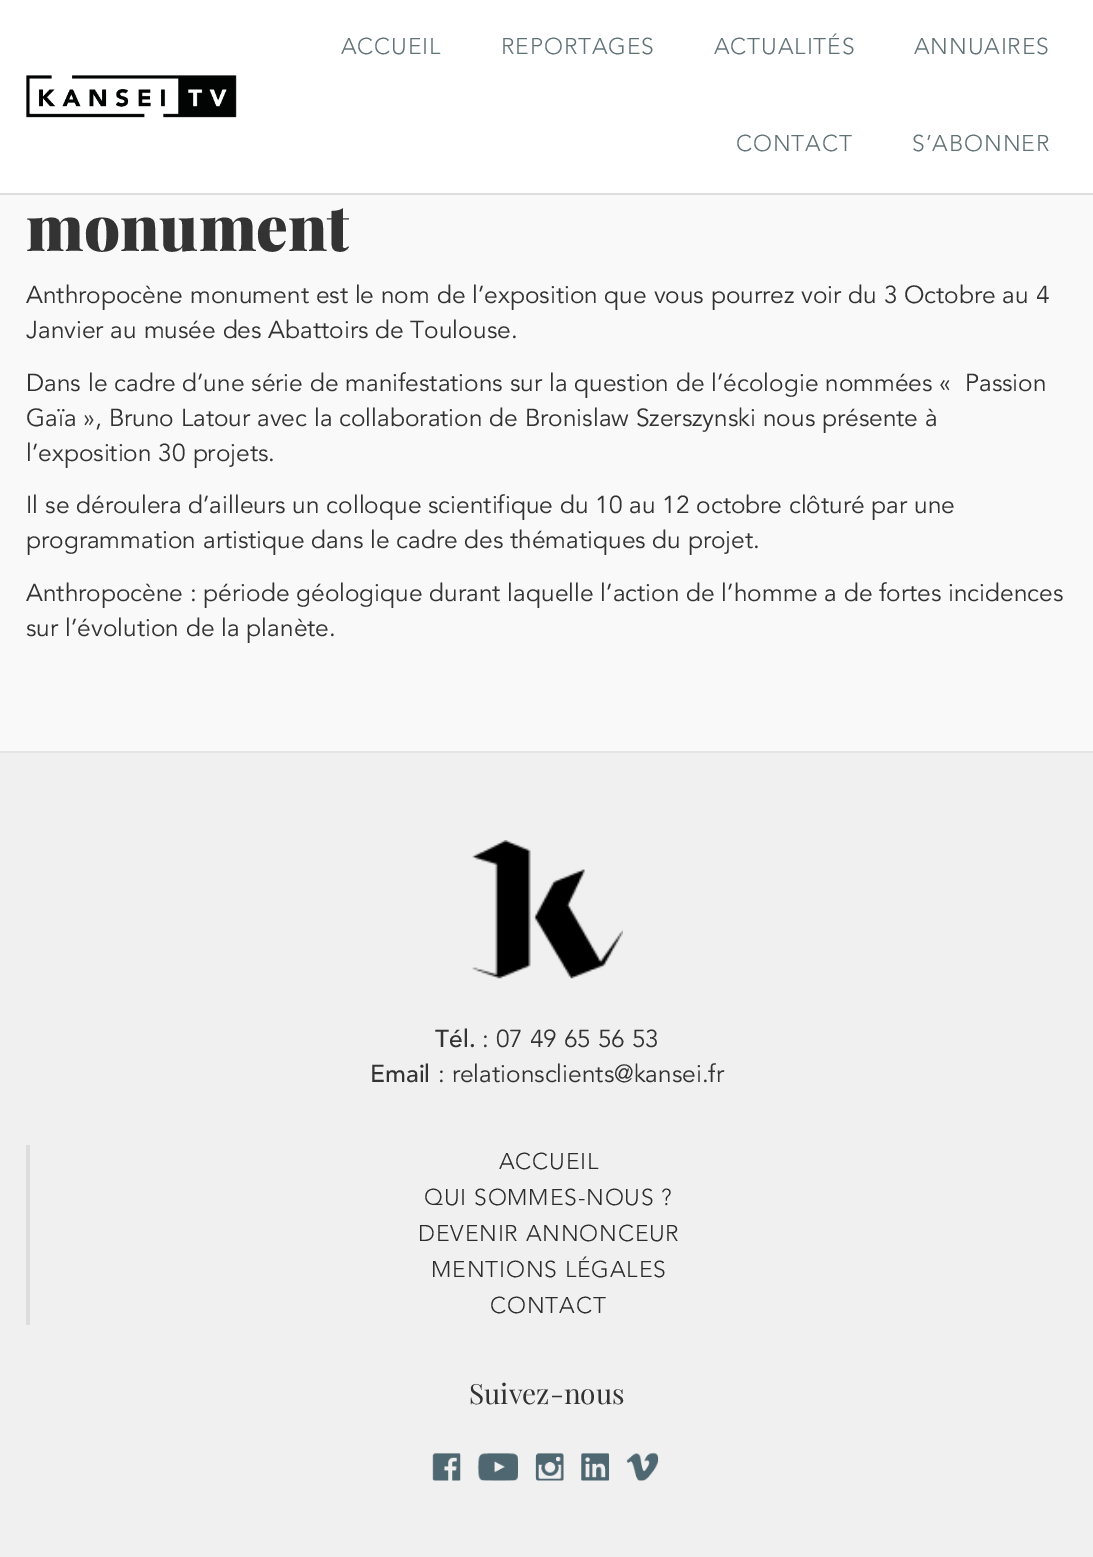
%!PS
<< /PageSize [1093 1557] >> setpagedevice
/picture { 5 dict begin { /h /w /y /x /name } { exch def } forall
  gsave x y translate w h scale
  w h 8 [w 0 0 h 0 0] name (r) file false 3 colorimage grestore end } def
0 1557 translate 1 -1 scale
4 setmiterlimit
0.976 setgray
0 0 1093 1557 rectfill
1 setgray
0 0 1093 193 rectfill
0.867 setgray
0 193 1093 2 rectfill
(img1.rgb) 26 75 211 43 picture
/Avenir-Light [22.75 0 0 -22.75 0 0] selectfont
0.38 0.447 0.463 setrgbcolor
341 54 moveto 0.9 0 (ACCUEIL) ashow
501 54 moveto 0.9 0 (REPORTAGES) ashow
714 54 moveto 0.9 0 (ACTUALITÉS) ashow
914 54 moveto 0.9 0 (ANNUAIRES) ashow
736 151 moveto 0.9 0 (CONTACT) ashow
912 151 moveto 0.9 0 (S’ABONNER) ashow
/PlayfairDisplay-Black [63 0 0 -63 0 0] selectfont
0.2 setgray
26 251 moveto (monument) show
/Avenir-Regular [24.5 0 0 -24.5 0 0] selectfont
26 303 moveto (Anthropocène monument est le nom de l’exposition que vous pourrez voir du 3 Octobre au 4) show
26 338 moveto (Janvier au musée des Abattoirs de Toulouse.) show
26 391 moveto (Dans le cadre d’une série de manifestations sur la question de l’écologie nommées «  Passion) show
26 426 moveto (Gaïa », Bruno Latour avec la collaboration de Bronislaw Szerszynski nous présente à) show
26 461 moveto (l’exposition 30 projets.) show
26 513 moveto (Il se déroulera d’ailleurs un colloque scientifique du 10 au 12 octobre clôturé par une) show
26 548 moveto (programmation artistique dans le cadre des thématiques du projet.) show
26 601 moveto (Anthropocène : période géologique durant laquelle l’action de l’homme a de fortes incidences) show
26 636 moveto (sur l’évolution de la planète.) show
0.941 setgray
0 753 1093 804 rectfill
0.898 setgray
0 751 1093 2 rectfill
(img2.rgb) 472 840 151 139 picture
/Avenir-Medium [24.5 0 0 -24.5 0 0] selectfont
0.2 setgray
435 1047 moveto (Tél.) show
/Avenir-Regular [24.5 0 0 -24.5 0 0] selectfont
482 1047 moveto (: 07 49 65 56 53) show
/Avenir-Medium [24.5 0 0 -24.5 0 0] selectfont
370 1082 moveto (Email) show
/Avenir-Regular [24.5 0 0 -24.5 0 0] selectfont
438 1082 moveto (: relationsclients@kansei.fr) show
0.867 setgray
26 1145 4 180 rectfill
/Avenir-Light [22.75 0 0 -22.75 0 0] selectfont
0.173 setgray
499 1169 moveto 0.9 0 (ACCUEIL) ashow
424 1205 moveto 0.9 0 (QUI SOMMES-NOUS ?) ashow
418 1241 moveto 0.9 0 (DEVENIR ANNONCEUR) ashow
431 1277 moveto 0.9 0 (MENTIONS LÉGALES) ashow
490 1313 moveto 0.9 0 (CONTACT) ashow
/PlayfairDisplay-Regular [28 0 0 -28 0 0] selectfont
0.2 setgray
469 1404 moveto (Suivez-nous) show
(img3.rgb) 432 1453 29 28 picture
(img4.rgb) 477 1453 41 28 picture
(img5.rgb) 535 1453 29 28 picture
(img6.rgb) 581 1453 28 28 picture
(img7.rgb) 626 1452 33 29 picture
showpage
